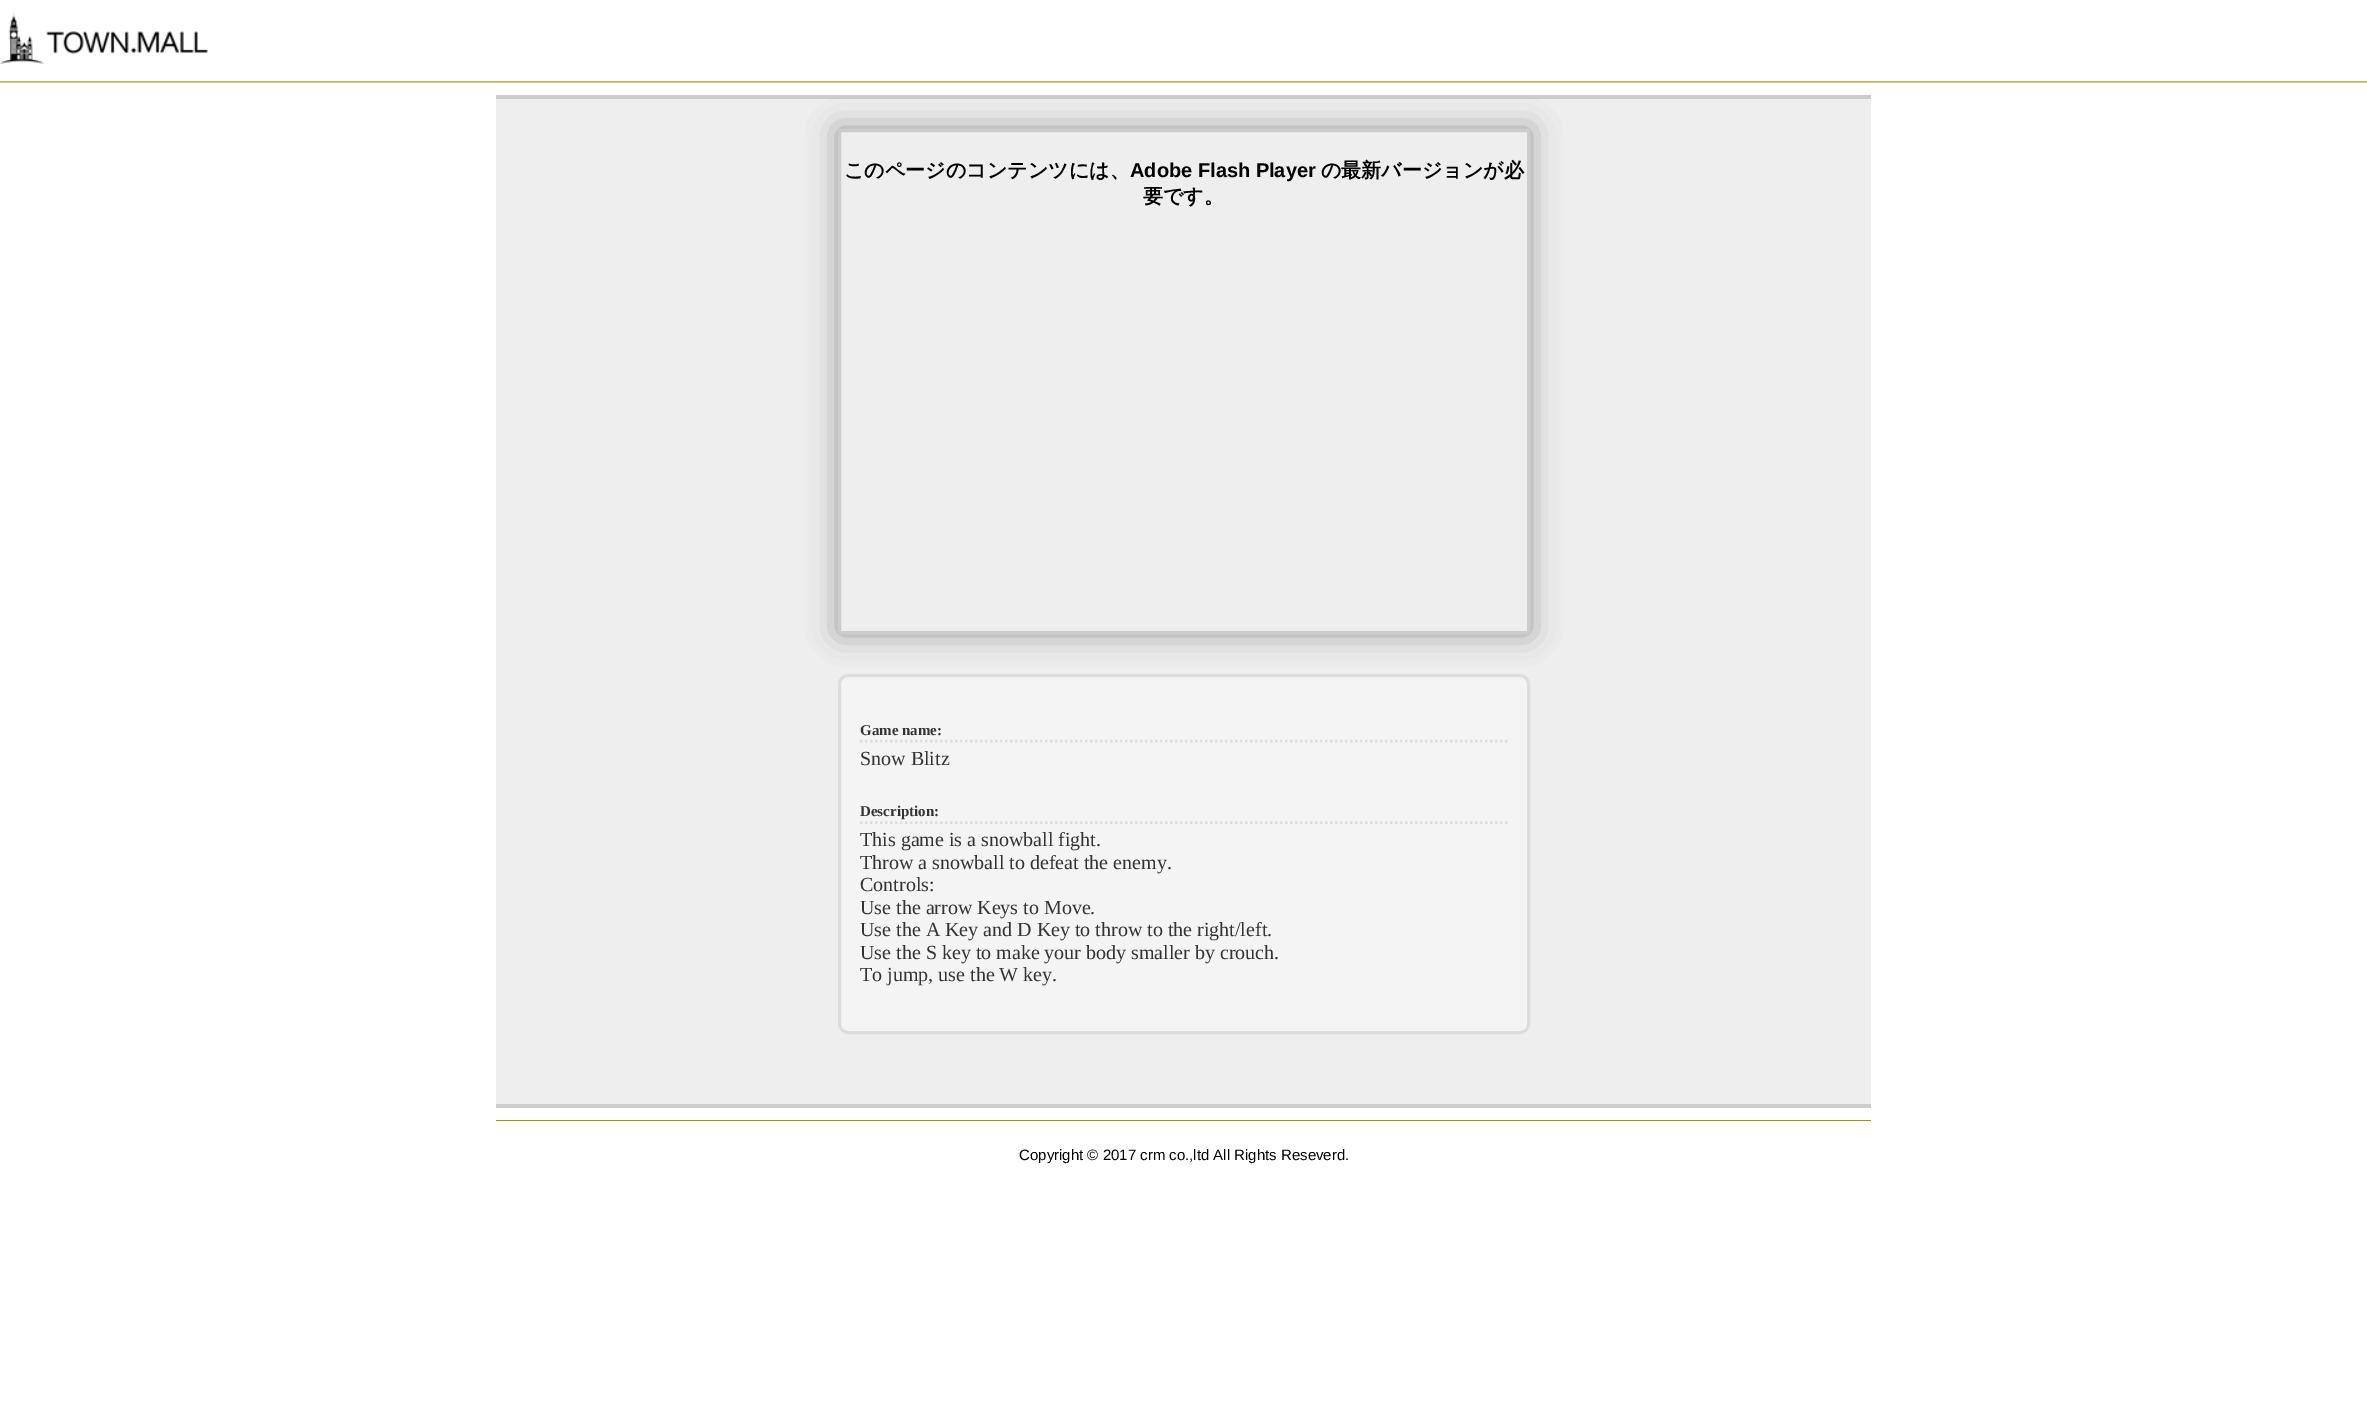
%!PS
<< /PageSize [2367 1408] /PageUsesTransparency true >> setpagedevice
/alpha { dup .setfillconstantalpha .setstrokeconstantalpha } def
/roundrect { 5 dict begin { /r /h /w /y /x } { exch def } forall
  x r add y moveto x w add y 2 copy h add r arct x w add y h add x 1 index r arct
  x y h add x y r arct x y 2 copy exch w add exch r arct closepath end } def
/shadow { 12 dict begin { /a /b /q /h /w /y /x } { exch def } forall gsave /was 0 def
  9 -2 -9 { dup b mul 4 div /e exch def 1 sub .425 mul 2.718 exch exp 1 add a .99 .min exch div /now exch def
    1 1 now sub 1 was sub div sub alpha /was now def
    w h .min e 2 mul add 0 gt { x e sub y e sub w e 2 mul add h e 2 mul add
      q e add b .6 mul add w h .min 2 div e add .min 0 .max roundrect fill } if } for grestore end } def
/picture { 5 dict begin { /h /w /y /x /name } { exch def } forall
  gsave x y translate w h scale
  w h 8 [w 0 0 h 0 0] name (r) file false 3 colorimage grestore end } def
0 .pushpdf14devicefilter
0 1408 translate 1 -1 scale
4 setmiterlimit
1 setgray
0 0 2367 1408 rectfill
(img1.rgb) 0 12 208 52 picture
(img2.rgb) 0 81 2367 2 picture
0.933 setgray
496 99 1375 1005 rectfill
0.8 setgray
496 95 1375 4 rectfill
496 1104 1375 4 rectfill
gsave
newpath 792 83 moveto 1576 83 lineto 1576 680 lineto 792 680 lineto closepath 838 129 moveto 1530 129 lineto 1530 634 lineto 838 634 lineto closepath eoclip newpath
0.6 setgray
838 129 692 505 0 15 1 shadow
grestore
3 setlinewidth
839.5 130.5 689 502 rectstroke
/WenQuanYiZenHei-Bold [20 0 0 -20 0 0] selectfont
0 setgray
844 177 moveto (このページのコンテンツには、) show
/LiberationSans-Bold [20 0 0 -20 0 0] selectfont
1130 177 moveto (Adobe Flash Player) show
/WenQuanYiZenHei-Bold [20 0 0 -20 0 0] selectfont
1321 177 moveto (の最新バージョンが必) show
1143 203 moveto (要です。) show
0.957 setgray
839.5 675.5 689 357 8.5 roundrect gsave fill grestore
0.867 setgray
stroke
2.5 setlinewidth
[2.5 2.5] 0 setdash
newpath 860 741 moveto 1507.5 741 lineto stroke
/LiberationSerif-Bold [15 0 0 -15 0 0] selectfont
0.2 setgray
860 735 moveto (Game name:) show
/LiberationSerif-Regular [20 0 0 -20 0 0] selectfont
860 765 moveto (Snow Blitz) show
0.867 setgray
newpath 860 822.5 moveto 1507.5 822.5 lineto stroke
/LiberationSerif-Bold [15 0 0 -15 0 0] selectfont
0.2 setgray
860 816 moveto (Description:) show
/LiberationSerif-Regular [20 0 0 -20 0 0] selectfont
860 846 moveto (This game is a snowball fight.) show
860 869 moveto (Throw a snowball to defeat the enemy.) show
860 891 moveto (Controls:) show
860 914 moveto (Use the arrow Keys to Move.) show
860 936 moveto (Use the A Key and D Key to throw to the right/left.) show
860 959 moveto (Use the S key to make your body smaller by crouch.) show
860 981 moveto (To jump, use the W key.) show
0.6 0.6 0 setrgbcolor
496 1120 1375 1 rectfill
/LiberationSans-Regular [15 0 0 -15 0 0] selectfont
0 setgray
1019 1160 moveto (Copyright © 2017 crm co.,ltd All Rights Reseverd.) show
.poppdf14devicefilter showpage
